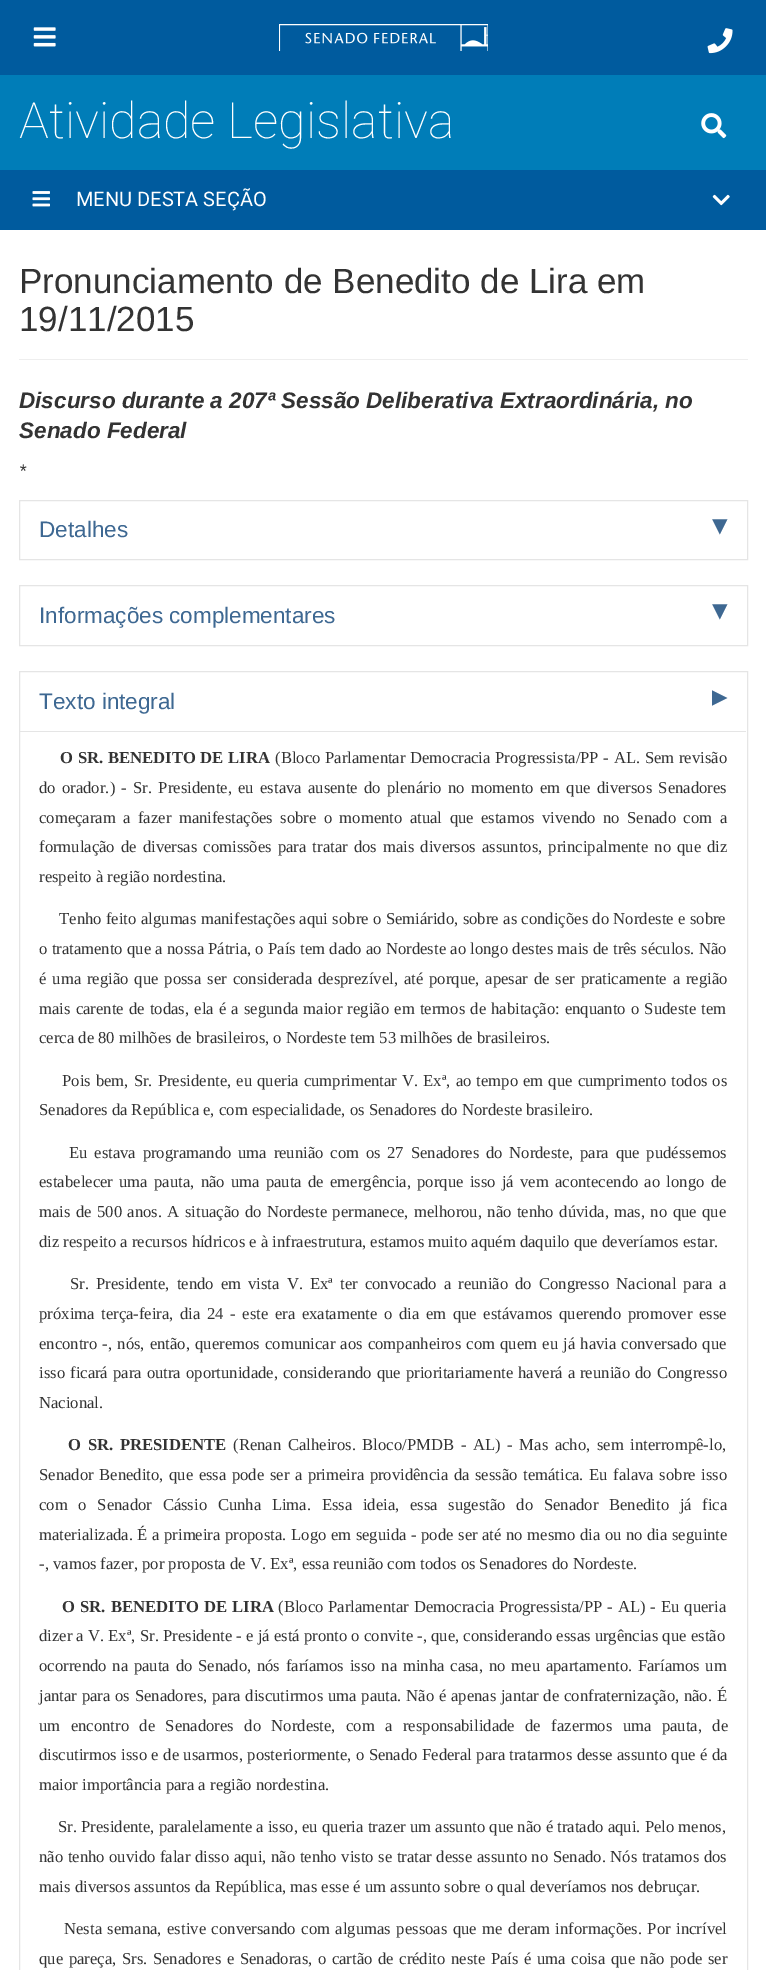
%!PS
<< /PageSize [766 1970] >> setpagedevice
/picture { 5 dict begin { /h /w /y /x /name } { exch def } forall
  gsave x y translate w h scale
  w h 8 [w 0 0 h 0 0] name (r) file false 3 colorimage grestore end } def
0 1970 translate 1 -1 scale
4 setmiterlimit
1 setgray
0 0 766 1970 rectfill
0 0.357 0.62 setrgbcolor
0 0 766 75 rectfill
(img1.rgb) 33 27 23 20 picture
(img2.rgb) 279 24 209 27 picture
(img3.rgb) 707 28 26 26 picture
0 0.49 0.722 setrgbcolor
0 75 766 95 rectfill
/Roboto-Thin [50 0 0 -50 0 0] selectfont
1 setgray
19 138 moveto (Atividade Legislativa) show
(img4.rgb) 701 113 26 26 picture
0 0.357 0.62 setrgbcolor
0 170 766 60 rectfill
(img5.rgb) 32 191 18 16 picture
/Roboto-Regular [20 0 0 -20 0 0] selectfont
1 setgray
76 206 moveto (MENU DESTA SEÇÃO) show
(img6.rgb) 712 194 18 12 picture
0.933 setgray
19 359 729 1 rectfill
/LiberationSans-Regular [35 0 0 -35 0 0] selectfont
0.2 setgray
19 293 moveto (Pronunciamento de Benedito de Lira em) show
19 331 moveto (19/11/2015) show
/LiberationSans-BoldItalic [22.5 0 0 -22.5 0 0] selectfont
19 408 moveto (Discurso durante a 207ª Sessão Deliberativa Extraordinária, no) show
19 438 moveto (Senado Federal) show
/LiberationSans-Italic [18 0 0 -18 0 0] selectfont
19 477 moveto (*) show
0.898 setgray
19.5 500.5 728 59 rectstroke
/LiberationSans-Regular [22.5 0 0 -22.5 0 0] selectfont
0.243 0.408 0.573 setrgbcolor
39 537 moveto (Detalhes) show
/DejaVuSans-Regular [31 0 0 -31 0 0] selectfont
712 535 moveto (▾) show
0.898 setgray
19.5 585.5 728 60 rectstroke
/LiberationSans-Regular [22.5 0 0 -22.5 0 0] selectfont
0.243 0.408 0.573 setrgbcolor
39 623 moveto (Informações complementares) show
/DejaVuSans-Regular [31 0 0 -31 0 0] selectfont
712 620 moveto (▾) show
0.898 setgray
19.5 671.5 728 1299 rectstroke
/LiberationSans-Regular [22.5 0 0 -22.5 0 0] selectfont
0.243 0.408 0.573 setrgbcolor
39 709 moveto (Texto integral) show
/DejaVuSans-Regular [31 0 0 -31 0 0] selectfont
712 706 moveto (▸) show
0.898 setgray
20 731 726 1 rectfill
/LiberationSerif-Bold [16.65 0 0 -16.65 0 0] selectfont
0.2 setgray
60 763 moveto 0.5 0 32 (O SR. BENEDITO DE LIRA) widthshow
/LiberationSerif-Regular [16.65 0 0 -16.65 0 0] selectfont
275 763 moveto 0.5 0 32 (\(Bloco Parlamentar Democracia Progressista/PP - AL. Sem revisão) widthshow
39 793 moveto 2.1 0 32 (do orador.\) - Sr. Presidente, eu estava ausente do plenário no momento em que diversos Senadores) widthshow
39 823 moveto 3.25 0 32 (começaram a fazer manifestações sobre o momento atual que estamos vivendo no Senado com a) widthshow
39 852 moveto 1.9 0 32 (formulação de diversas comissões para tratar dos mais diversos assuntos, principalmente no que diz) widthshow
39 882 moveto (respeito à região nordestina.) show
59 924 moveto 0.25 0 32 (Tenho feito algumas manifestações aqui sobre o Semiárido, sobre as condições do Nordeste e sobre) widthshow
39 954 moveto 0.1 0 32 (o tratamento que a nossa Pátria, o País tem dado ao Nordeste ao longo destes mais de três séculos. Não) widthshow
39 984 moveto 1.75 0 32 (é uma região que possa ser considerada desprezível, até porque, apesar de ser praticamente a região) widthshow
39 1014 moveto 1 0 32 (mais carente de todas, ela é a segunda maior região em termos de habitação: enquanto o Sudeste tem) widthshow
39 1043 moveto (cerca de 80 milhões de brasileiros, o Nordeste tem 53 milhões de brasileiros.) show
62 1086 moveto 0.9 0 32 (Pois bem, Sr. Presidente, eu queria cumprimentar V. Exª, ao tempo em que cumprimento todos os) widthshow
39 1115 moveto (Senadores da República e, com especialidade, os Senadores do Nordeste brasileiro.) show
69 1158 moveto 2.6 0 32 (Eu estava programando uma reunião com os 27 Senadores do Nordeste, para que pudéssemos) widthshow
39 1187 moveto 2.1 0 32 (estabelecer uma pauta, não uma pauta de emergência, porque isso já vem acontecendo ao longo de) widthshow
39 1217 moveto 1.25 0 32 (mais de 500 anos. A situação do Nordeste permanece, melhorou, não tenho dúvida, mas, no que que) widthshow
39 1247 moveto (diz respeito a recursos hídricos e à infraestrutura, estamos muito aquém daquilo que deveríamos estar.) show
70 1289 moveto 2.9 0 32 (Sr. Presidente, tendo em vista V. Exª ter convocado a reunião do Congresso Nacional para a) widthshow
39 1319 moveto 2.4 0 32 (próxima terça-feira, dia 24 - este era exatamente o dia em que estávamos querendo promover esse) widthshow
39 1349 moveto 1 0 32 (encontro -, nós, então, queremos comunicar aos companheiros com quem eu já havia conversado que) widthshow
39 1378 moveto 0.9 0 32 (isso ficará para outra oportunidade, considerando que prioritariamente haverá a reunião do Congresso) widthshow
39 1408 moveto (Nacional.) show
/LiberationSerif-Bold [16.65 0 0 -16.65 0 0] selectfont
68 1450 moveto 2.5 0 32 (O SR. PRESIDENTE) widthshow
/LiberationSerif-Regular [16.65 0 0 -16.65 0 0] selectfont
233 1450 moveto 2.5 0 32 (\(Renan Calheiros. Bloco/PMDB - AL\) - Mas acho, sem interrompê-lo,) widthshow
39 1480 moveto 1.4 0 32 (Senador Benedito, que essa pode ser a primeira providência da sessão temática. Eu falava sobre isso) widthshow
39 1510 moveto 6.5 0 32 (com o Senador Cássio Cunha Lima. Essa ideia, essa sugestão do Senador Benedito já fica) widthshow
39 1540 moveto 0.4 0 32 (materializada. É a primeira proposta. Logo em seguida - pode ser até no mesmo dia ou no dia seguinte) widthshow
39 1569 moveto (-, vamos fazer, por proposta de V. Exª, essa reunião com todos os Senadores do Nordeste.) show
/LiberationSerif-Bold [16.65 0 0 -16.65 0 0] selectfont
62 1612 moveto 1 0 32 (O SR. BENEDITO DE LIRA) widthshow
/LiberationSerif-Regular [16.65 0 0 -16.65 0 0] selectfont
278 1612 moveto 0.75 0 32 (\(Bloco Parlamentar Democracia Progressista/PP - AL\) - Eu queria) widthshow
39 1641 moveto (dizer a V. Exª, Sr. Presidente - e já está pronto o convite -, que, considerando essas urgências que estão) show
39 1671 moveto 1.6 0 32 (ocorrendo na pauta do Senado, nós faríamos isso na minha casa, no meu apartamento. Faríamos um) widthshow
39 1701 moveto 0.6 0 32 (jantar para os Senadores, para discutirmos uma pauta. Não é apenas jantar de confraternização, não. É) widthshow
39 1731 moveto 6.25 0 32 (um encontro de Senadores do Nordeste, com a responsabilidade de fazermos uma pauta, de) widthshow
39 1760 moveto 0.25 0 32 (discutirmos isso e de usarmos, posteriormente, o Senado Federal para tratarmos desse assunto que é da) widthshow
39 1790 moveto (maior importância para a região nordestina.) show
58 1832 moveto (Sr. Presidente, paralelamente a isso, eu queria trazer um assunto que não é tratado aqui. Pelo menos,) show
39 1862 moveto 0.4 0 32 (não tenho ouvido falar disso aqui, não tenho visto se tratar desse assunto no Senado. Nós tratamos dos) widthshow
39 1892 moveto (mais diversos assuntos da República, mas esse é um assunto sobre o qual deveríamos nos debruçar.) show
64 1934 moveto 1.4 0 32 (Nesta semana, estive conversando com algumas pessoas que me deram informações. Por incrível) widthshow
39 1964 moveto 1.4 0 32 (que pareça, Srs. Senadores e Senadoras, o cartão de crédito neste País é uma coisa que não pode ser) widthshow
showpage
